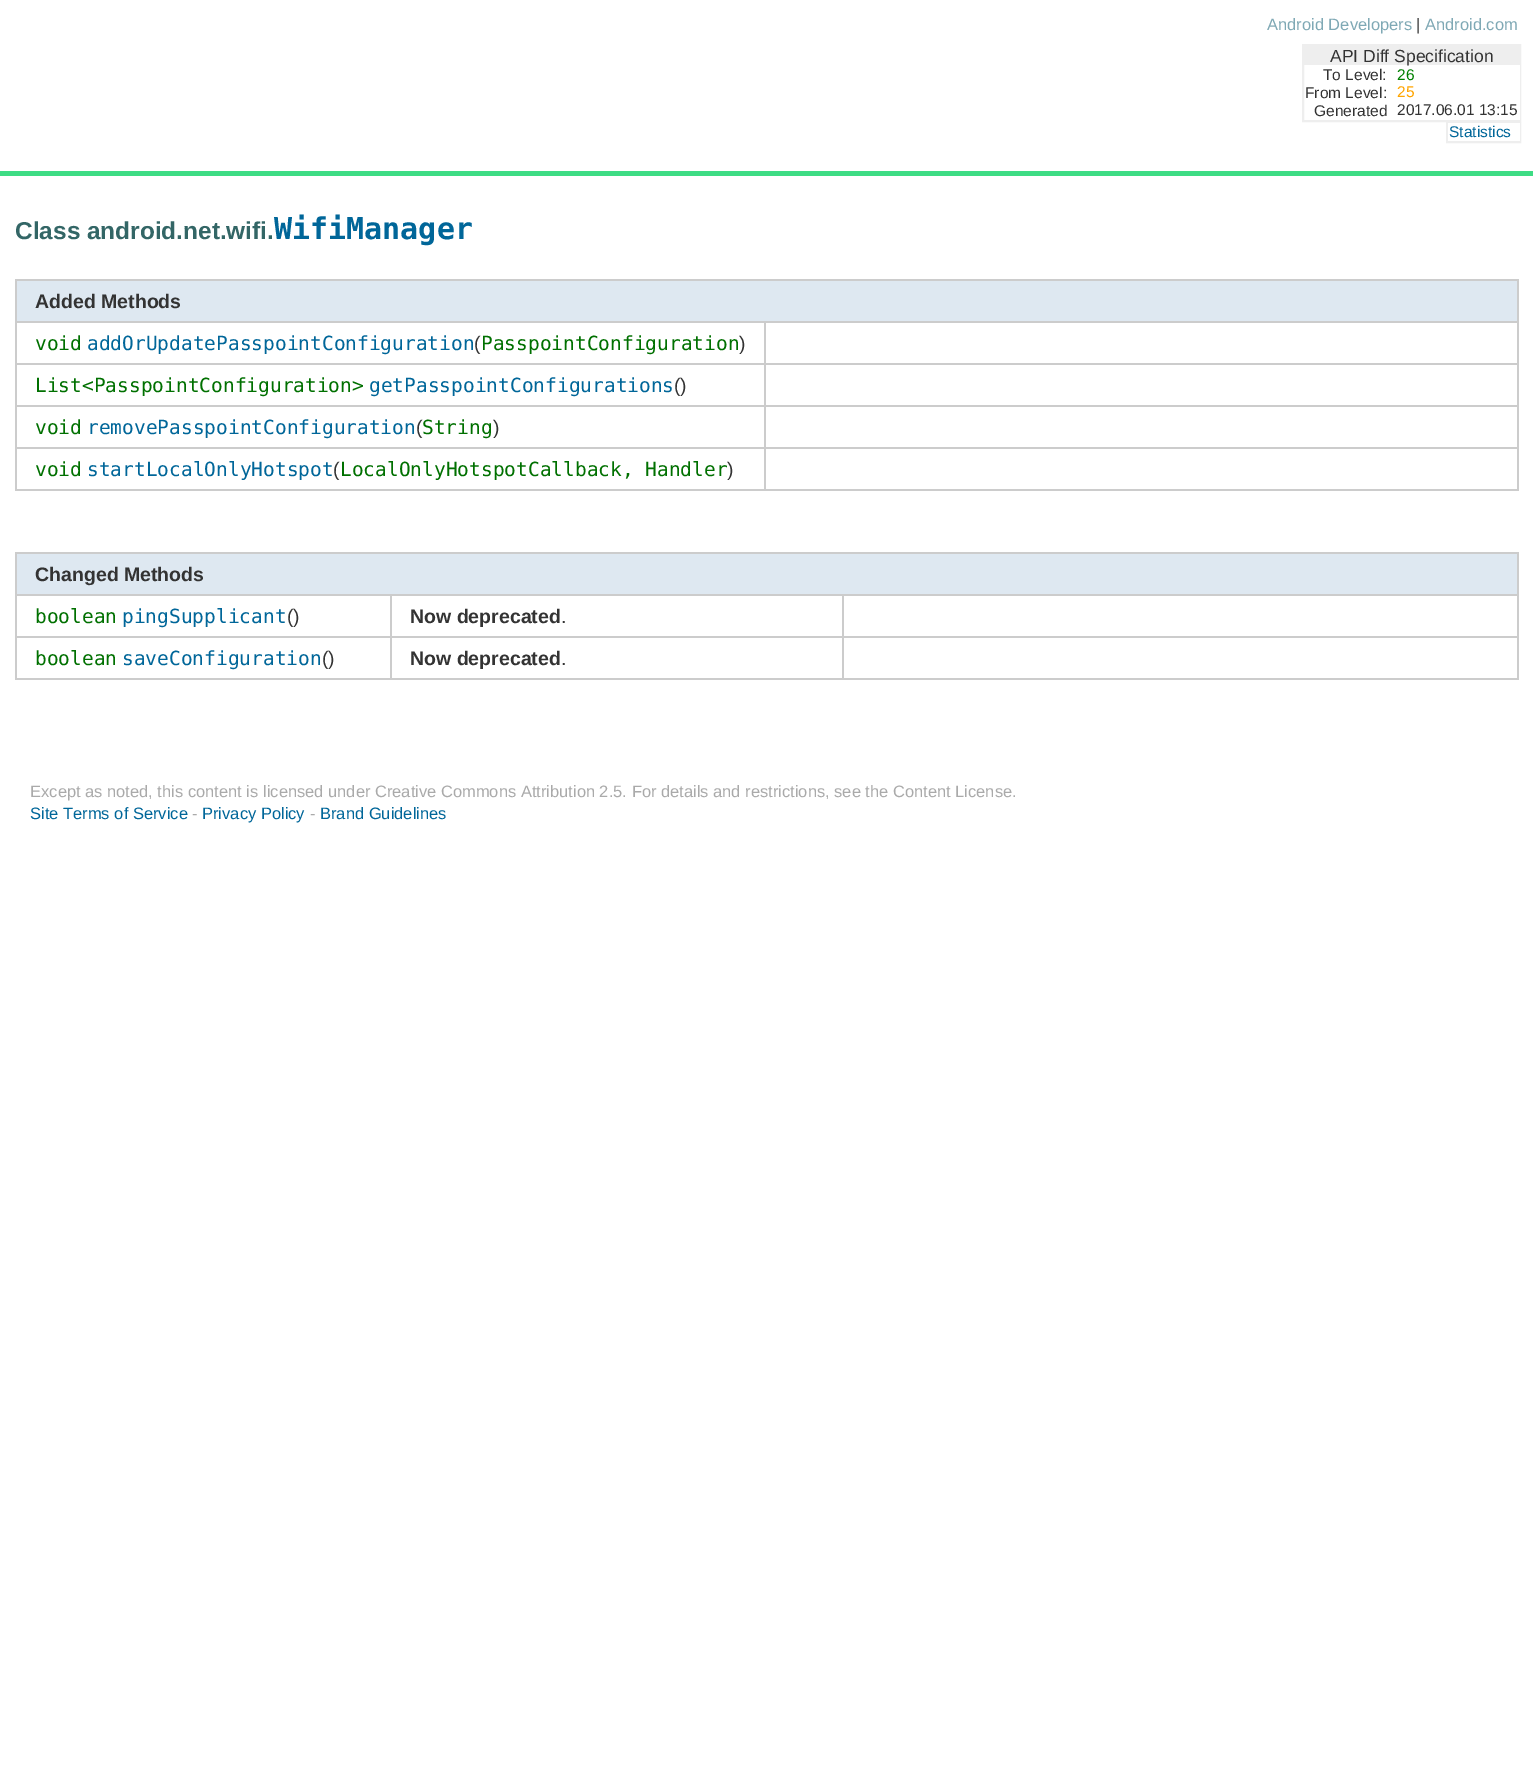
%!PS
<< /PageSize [1533 1781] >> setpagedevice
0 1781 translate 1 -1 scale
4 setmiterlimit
1 setgray
0 0 1533 1781 rectfill
0.239 0.863 0.518 setrgbcolor
0 171 1533 5 rectfill
/LiberationSans-Regular [16.5 0 0 -16.5 0 0] selectfont
0.498 0.663 0.71 setrgbcolor
1267 30 moveto (Android Developers) show
0.2 setgray
1416 30 moveto (|) show
0.498 0.663 0.71 setrgbcolor
1425 30 moveto (Android.com) show
0.933 setgray
2 setlinewidth
1303 45 217 76 rectstroke
1304 46 215 19 rectfill
/LiberationSans-Regular [17.5 0 0 -17.5 0 0] selectfont
0.2 setgray
1330 62 moveto (API Diff Specification) show
/LiberationSans-Regular [15.5 0 0 -15.5 0 0] selectfont
1323 80 moveto (To Level:) show
1 setgray
1519 65 1 55 rectfill
0 0.502 0 setrgbcolor
1397 80 moveto (26) show
0.2 setgray
1305 98 moveto (From Level:) show
1 0.647 0 setrgbcolor
1397 97 moveto (25) show
0.2 setgray
1314 116 moveto (Generated) show
1397 115 moveto (2017.06.01 13:15) show
0.933 setgray
1447 123 73 19 rectstroke
1 setgray
1448 123 72 18 rectfill
0 0.4 0.6 setrgbcolor
1449 137 moveto (Statistics) show
/LiberationSans-Bold [24.4 0 0 -24.4 0 0] selectfont
0.2 0.4 0.4 setrgbcolor
15 239 moveto (Class android.net.wifi.) show
/DejaVuSansMono-Bold [30 0 0 -30 0 0] selectfont
0 0.4 0.6 setrgbcolor
274 239 moveto (WifiManager) show
0.871 0.91 0.945 setrgbcolor
17 281 1500 40 rectfill
0.8 setgray
15 279 1503 2 rectfill
764 321 754 2 rectfill
764 363 754 2 rectfill
764 405 754 2 rectfill
764 447 754 2 rectfill
1517 447 2 44 rectfill
1517 405 2 44 rectfill
1517 363 2 44 rectfill
1517 321 2 44 rectfill
1517 279 2 44 rectfill
764 489 754 2 rectfill
764 447 2 44 rectfill
15 447 750 2 rectfill
764 405 2 44 rectfill
15 405 750 2 rectfill
764 363 2 44 rectfill
15 363 750 2 rectfill
764 321 2 44 rectfill
15 321 750 2 rectfill
15 489 750 2 rectfill
15 447 2 44 rectfill
15 405 2 44 rectfill
15 363 2 44 rectfill
15 321 2 44 rectfill
15 279 2 44 rectfill
/LiberationSans-Bold [19.5 0 0 -19.5 0 0] selectfont
0.2 setgray
35 308 moveto (Added Methods) show
/DejaVuSansMono-Regular [19.5 0 0 -19.5 0 0] selectfont
0 0.439 0 setrgbcolor
35 350 moveto (void) show
0 0.4 0.6 setrgbcolor
87 350 moveto (addOrUpdatePasspointConfiguration) show
/LiberationSans-Regular [19.5 0 0 -19.5 0 0] selectfont
0.2 setgray
474 350 moveto (\() show
/DejaVuSansMono-Regular [19.5 0 0 -19.5 0 0] selectfont
0 0.439 0 setrgbcolor
481 350 moveto (PasspointConfiguration) show
/LiberationSans-Regular [19.5 0 0 -19.5 0 0] selectfont
0.2 setgray
739 350 moveto (\)) show
/DejaVuSansMono-Regular [19.5 0 0 -19.5 0 0] selectfont
0 0.439 0 setrgbcolor
35 392 moveto (List<PasspointConfiguration>) show
0 0.4 0.6 setrgbcolor
369 392 moveto (getPasspointConfigurations) show
/LiberationSans-Regular [19.5 0 0 -19.5 0 0] selectfont
0.2 setgray
674 392 moveto (\(\)) show
/DejaVuSansMono-Regular [19.5 0 0 -19.5 0 0] selectfont
0 0.439 0 setrgbcolor
35 434 moveto (void) show
0 0.4 0.6 setrgbcolor
87 434 moveto (removePasspointConfiguration) show
/LiberationSans-Regular [19.5 0 0 -19.5 0 0] selectfont
0.2 setgray
416 434 moveto (\() show
/DejaVuSansMono-Regular [19.5 0 0 -19.5 0 0] selectfont
0 0.439 0 setrgbcolor
422 434 moveto (String) show
/LiberationSans-Regular [19.5 0 0 -19.5 0 0] selectfont
0.2 setgray
493 434 moveto (\)) show
/DejaVuSansMono-Regular [19.5 0 0 -19.5 0 0] selectfont
0 0.439 0 setrgbcolor
35 476 moveto (void) show
0 0.4 0.6 setrgbcolor
87 476 moveto (startLocalOnlyHotspot) show
/LiberationSans-Regular [19.5 0 0 -19.5 0 0] selectfont
0.2 setgray
333 476 moveto (\() show
/DejaVuSansMono-Regular [19.5 0 0 -19.5 0 0] selectfont
0 0.439 0 setrgbcolor
340 476 moveto (LocalOnlyHotspotCallback, Handler) show
/LiberationSans-Regular [19.5 0 0 -19.5 0 0] selectfont
0.2 setgray
727 476 moveto (\)) show
0.871 0.91 0.945 setrgbcolor
17 554 1500 40 rectfill
0.8 setgray
15 552 1503 2 rectfill
842 594 676 2 rectfill
842 636 676 2 rectfill
1517 636 2 44 rectfill
1517 594 2 44 rectfill
1517 552 2 44 rectfill
842 678 676 2 rectfill
842 636 2 44 rectfill
390 636 453 2 rectfill
842 594 2 44 rectfill
390 594 453 2 rectfill
390 678 453 2 rectfill
390 636 2 44 rectfill
15 636 377 2 rectfill
390 594 2 44 rectfill
15 594 377 2 rectfill
15 678 377 2 rectfill
15 636 2 44 rectfill
15 594 2 44 rectfill
15 552 2 44 rectfill
/LiberationSans-Bold [19.5 0 0 -19.5 0 0] selectfont
0.2 setgray
35 581 moveto (Changed Methods) show
/DejaVuSansMono-Regular [19.5 0 0 -19.5 0 0] selectfont
0 0.439 0 setrgbcolor
35 623 moveto (boolean) show
0 0.4 0.6 setrgbcolor
122 623 moveto (pingSupplicant) show
/LiberationSans-Regular [19.5 0 0 -19.5 0 0] selectfont
0.2 setgray
287 623 moveto (\(\)) show
/LiberationSans-Bold [19.5 0 0 -19.5 0 0] selectfont
410 623 moveto (Now deprecated) show
/LiberationSans-Regular [19.5 0 0 -19.5 0 0] selectfont
561 623 moveto (.) show
/DejaVuSansMono-Regular [19.5 0 0 -19.5 0 0] selectfont
0 0.439 0 setrgbcolor
35 665 moveto (boolean) show
0 0.4 0.6 setrgbcolor
122 665 moveto (saveConfiguration) show
/LiberationSans-Regular [19.5 0 0 -19.5 0 0] selectfont
0.2 setgray
322 665 moveto (\(\)) show
/LiberationSans-Bold [19.5 0 0 -19.5 0 0] selectfont
410 665 moveto (Now deprecated) show
/LiberationSans-Regular [19.5 0 0 -19.5 0 0] selectfont
561 665 moveto (.) show
/LiberationSans-Regular [16.5 0 0 -16.5 0 0] selectfont
0.667 setgray
30 797 moveto (Except as noted, this content is licensed under Creative Commons Attribution 2.5. For details and restrictions, see the Content License.) show
0 0.4 0.6 setrgbcolor
30 819 moveto (Site Terms of Service) show
0.667 setgray
192 819 moveto (-) show
0 0.4 0.6 setrgbcolor
202 819 moveto (Privacy Policy) show
0.667 setgray
310 819 moveto (-) show
0 0.4 0.6 setrgbcolor
320 819 moveto (Brand Guidelines) show
showpage
